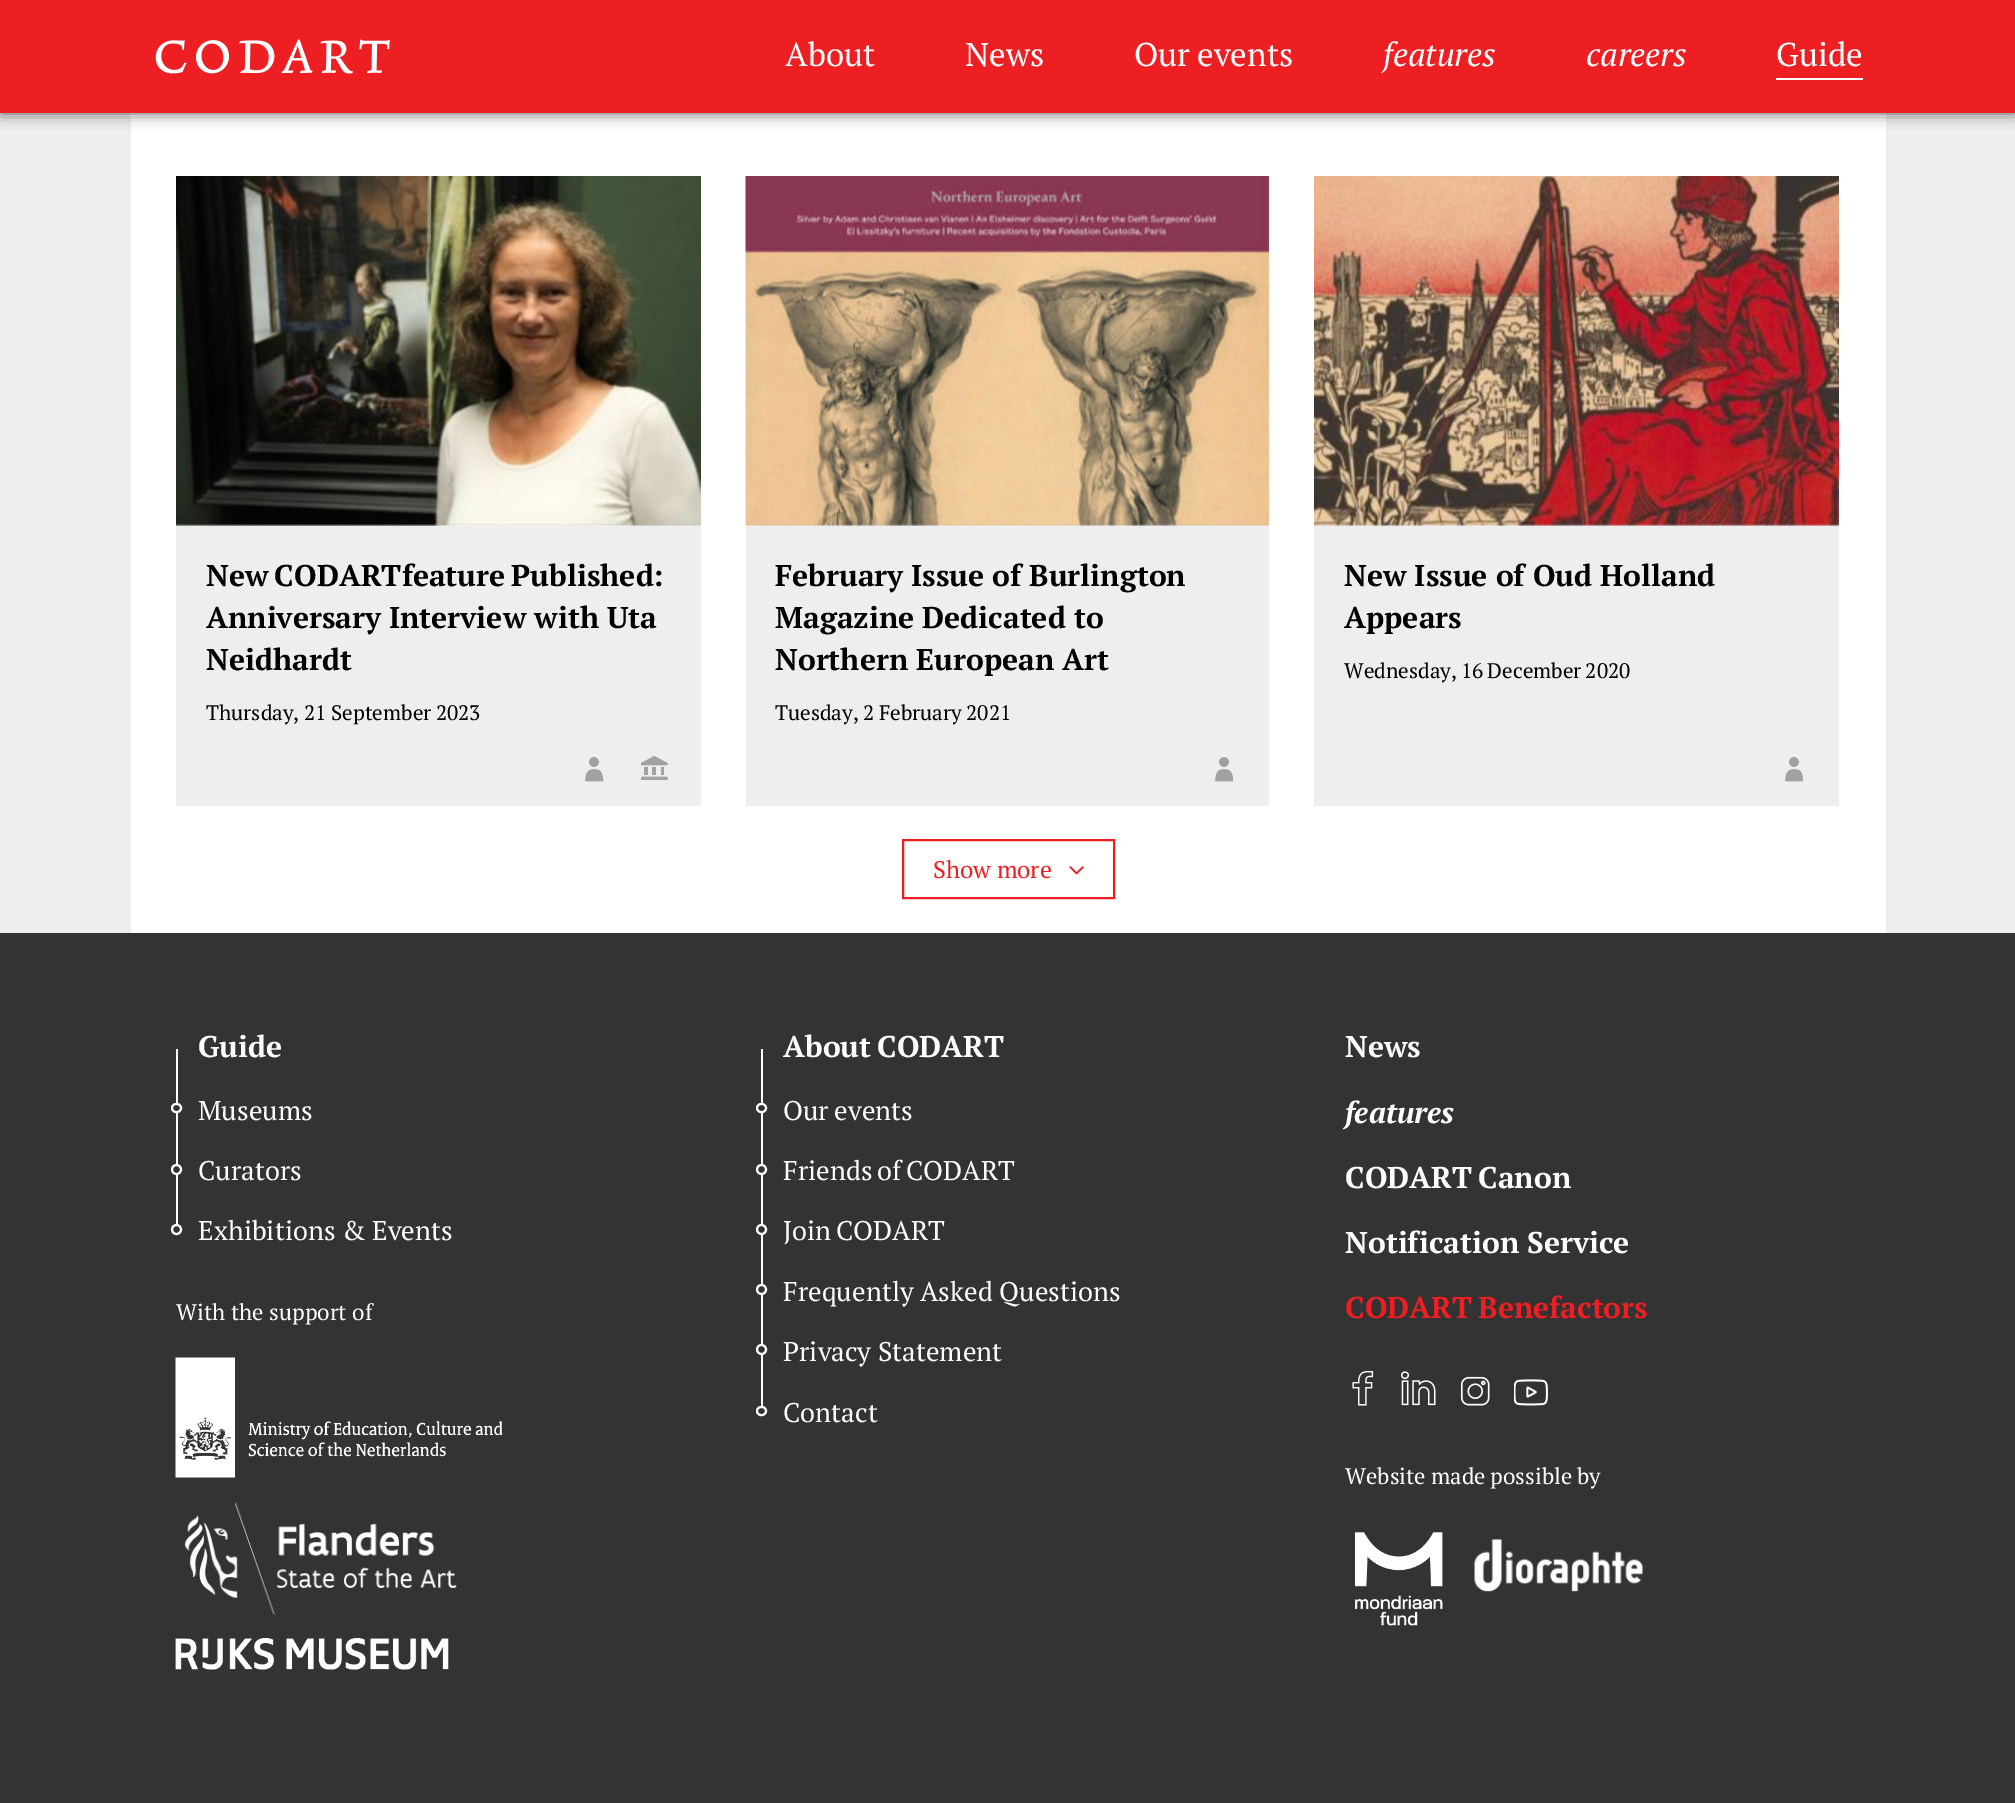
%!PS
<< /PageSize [2015 1803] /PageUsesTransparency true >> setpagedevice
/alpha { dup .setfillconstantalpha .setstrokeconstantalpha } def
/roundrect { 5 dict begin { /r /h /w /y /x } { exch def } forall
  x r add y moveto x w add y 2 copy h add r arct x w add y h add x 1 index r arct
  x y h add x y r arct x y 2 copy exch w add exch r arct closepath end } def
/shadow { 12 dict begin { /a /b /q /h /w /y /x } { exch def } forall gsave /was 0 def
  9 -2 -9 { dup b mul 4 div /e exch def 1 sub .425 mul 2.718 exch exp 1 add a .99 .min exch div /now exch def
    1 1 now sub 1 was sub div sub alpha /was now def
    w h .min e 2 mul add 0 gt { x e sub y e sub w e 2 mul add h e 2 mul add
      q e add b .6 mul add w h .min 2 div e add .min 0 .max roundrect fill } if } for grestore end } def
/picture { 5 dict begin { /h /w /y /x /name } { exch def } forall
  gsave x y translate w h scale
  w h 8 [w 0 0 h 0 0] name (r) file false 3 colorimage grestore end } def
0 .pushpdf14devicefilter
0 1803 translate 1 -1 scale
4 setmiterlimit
0.933 setgray
0 0 2015 1803 rectfill
1 setgray
131 113 1755 820 rectfill
0 setgray
0 0 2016 113 0 7.5 0.65 shadow
0.929 0.122 0.137 setrgbcolor
0 0 2015 113 rectfill
(img1.rgb) 155 39 235 35 picture
/PTSerif-Regular [33 0 0 -33 0 0] selectfont
1 setgray
785 66 moveto (About) show
965 66 moveto (News) show
1134 66 moveto -1 0 32 (Our events) widthshow
/PTSerif-Italic [33 0 0 -33 0 0] selectfont
1383 66 moveto (features) show
1586 66 moveto (careers) show
/PTSerif-Regular [33 0 0 -33 0 0] selectfont
1776 66 moveto (Guide) show
1776 78 87 2 rectfill
0.933 setgray
176 524 525 282 rectfill
(img2.rgb) 176 176 525 350 picture
/PTSerif-Bold [30 0 0 -30 0 0] selectfont
0 setgray
206 586 moveto -2 0 32 (New CODARTfeature Published:) widthshow
206 628 moveto (Anniversary Interview with Uta) show
206 670 moveto (Neidhardt) show
/PTSerif-Regular [21 0 0 -21 0 0] selectfont
206 720 moveto -0.5 0 32 (Thursday, 21 September 2023) widthshow
(img3.rgb) 585 757 19 25 picture
(img4.rgb) 641 756 27 24 picture
0.933 setgray
746 524 523 282 rectfill
(img5.rgb) 745 176 524 350 picture
/PTSerif-Bold [30 0 0 -30 0 0] selectfont
0 setgray
775 586 moveto (February Issue of Burlington) show
775 628 moveto (Magazine Dedicated to) show
775 670 moveto (Northern European Art) show
/PTSerif-Regular [21 0 0 -21 0 0] selectfont
775 720 moveto -0.5 0 32 (Tuesday, 2 February 2021) widthshow
(img6.rgb) 1215 757 18 25 picture
0.933 setgray
1314 524 525 282 rectfill
(img7.rgb) 1314 176 525 350 picture
/PTSerif-Bold [30 0 0 -30 0 0] selectfont
0 setgray
1344 586 moveto (New Issue of Oud Holland) show
1344 628 moveto (Appears) show
/PTSerif-Regular [21 0 0 -21 0 0] selectfont
1344 678 moveto -1 0 32 (Wednesday, 16 December 2020) widthshow
(img6.rgb) 1785 757 18 25 picture
0.929 0.122 0.137 setrgbcolor
2 setlinewidth
903 840 211 58 rectstroke
/PTSerif-Regular [24 0 0 -24 0 0] selectfont
933 878 moveto (Show more) show
(img8.rgb) 1069 866 15 9 picture
0.2 setgray
0 933 2015 870 rectfill
/PTSerif-Bold [30 0 0 -30 0 0] selectfont
1 setgray
198 1057 moveto (Guide) show
176 1049 2 181 rectfill
/PTSerif-Regular [27 0 0 -27 0 0] selectfont
198 1120 moveto (Museums) show
0.2 setgray
172 1104 9 8 4 roundrect gsave fill grestore
1 setgray
stroke
0.2 setgray
newpath 176.5 1169.5 4.5 0 360 arc closepath gsave fill grestore
1 setgray
stroke
198 1180 moveto (Curators) show
0.2 setgray
newpath 176.5 1229.5 4.5 0 360 arc closepath gsave fill grestore
1 setgray
stroke
198 1240 moveto (Exhibitions & Events) show
/PTSerif-Regular [22.5 0 0 -22.5 0 0] selectfont
176 1320 moveto (With the support of) show
(img9.rgb) 175 1357 328 121 picture
(img10.rgb) 184 1502 273 113 picture
(img11.rgb) 175 1638 274 32 picture
/PTSerif-Bold [30 0 0 -30 0 0] selectfont
783 1057 moveto -2 0 32 (About CODART) widthshow
761 1049 2 363 rectfill
/PTSerif-Regular [27 0 0 -27 0 0] selectfont
783 1120 moveto -1 0 32 (Our events) widthshow
0.2 setgray
757 1104 9 8 4 roundrect gsave fill grestore
1 setgray
stroke
0.2 setgray
newpath 761.5 1169.5 4.5 0 360 arc closepath gsave fill grestore
1 setgray
stroke
783 1180 moveto -2 0 32 (Friends of CODART) widthshow
0.2 setgray
newpath 761.5 1229.5 4.5 0 360 arc closepath gsave fill grestore
1 setgray
stroke
783 1240 moveto -2 0 32 (Join CODART) widthshow
0.2 setgray
newpath 761.5 1289.5 4.5 0 360 arc closepath gsave fill grestore
1 setgray
stroke
783 1301 moveto (Frequently Asked Questions) show
0.2 setgray
newpath 761.5 1349.5 4.5 0 360 arc closepath gsave fill grestore
1 setgray
stroke
783 1361 moveto (Privacy Statement) show
0.2 setgray
757 1407 9 8 4 roundrect gsave fill grestore
1 setgray
stroke
783 1422 moveto (Contact) show
/PTSerif-Bold [30 0 0 -30 0 0] selectfont
1345 1057 moveto (News) show
/PTSerif-BoldItalic [30 0 0 -30 0 0] selectfont
1345 1123 moveto (features) show
/PTSerif-Bold [30 0 0 -30 0 0] selectfont
1345 1188 moveto -2 0 32 (CODART Canon) widthshow
1345 1253 moveto (Notification Service) show
0.929 0.122 0.137 setrgbcolor
1345 1318 moveto -2 0 32 (CODART Benefactors) widthshow
(img12.rgb) 1352 1371 22 35 picture
(img13.rgb) 1401 1371 35 35 picture
(img14.rgb) 1460 1376 30 30 picture
(img15.rgb) 1514 1379 34 27 picture
/PTSerif-Regular [22.5 0 0 -22.5 0 0] selectfont
1 setgray
1345 1484 moveto -0.5 0 32 (Website made possible by) widthshow
(img16.rgb) 1355 1532 88 94 picture
(img17.rgb) 1474 1539 169 53 picture
.poppdf14devicefilter showpage
